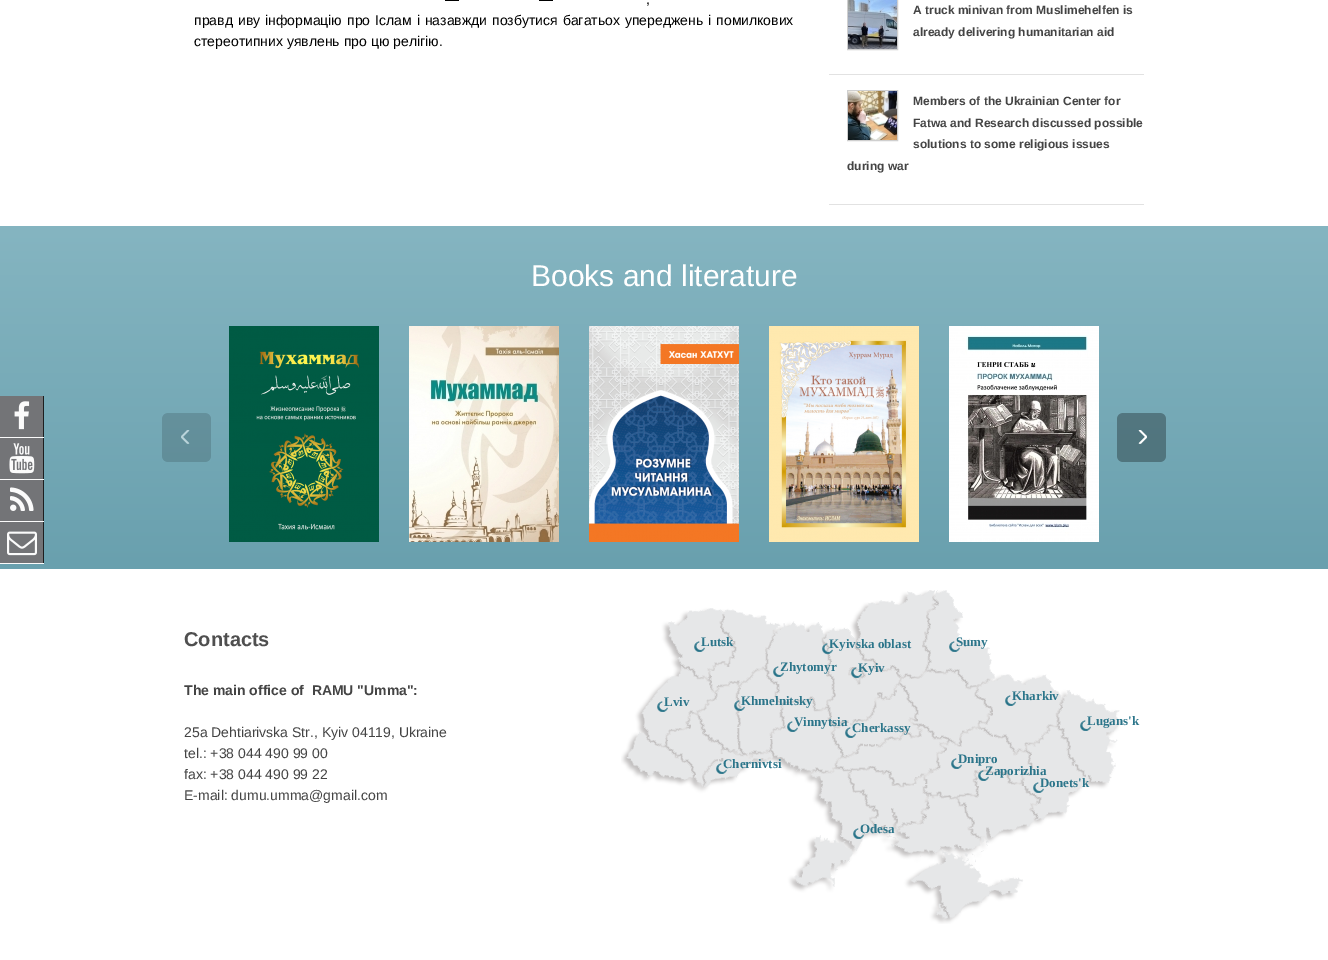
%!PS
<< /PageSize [1328 960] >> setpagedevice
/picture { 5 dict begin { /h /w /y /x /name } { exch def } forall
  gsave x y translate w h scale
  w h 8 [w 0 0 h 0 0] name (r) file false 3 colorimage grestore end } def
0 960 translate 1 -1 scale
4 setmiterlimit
1 setgray
0 0 1328 960 rectfill
gsave newpath 0 226 moveto 1328 226 lineto 1328 569 lineto 0 569 lineto closepath clip newpath
<< /ShadingType 2 /ColorSpace /DeviceRGB /Coords [664 226 664 569] /Extend [true true] /Function << /FunctionType 2 /Domain [0 1] /C0 [0.522 0.71 0.757] /C1 [0.412 0.627 0.682] /N 1 >> >> shfill grestore
0.451 0.455 0.467 setrgbcolor
0 396 43 41 rectfill
0.118 0.118 0.122 setrgbcolor
43 396 1 168 rectfill
0.984 setgray
0 437 44 1 rectfill
(img1.rgb) 14 401 16 29 picture
0.451 0.455 0.467 setrgbcolor
0 438 43 41 rectfill
0.984 setgray
0 479 44 1 rectfill
(img2.rgb) 9 443 26 31 picture
0.451 0.455 0.467 setrgbcolor
0 480 43 41 rectfill
0.984 setgray
0 521 44 1 rectfill
(img3.rgb) 10 487 24 24 picture
0.451 0.455 0.467 setrgbcolor
0 522 43 41 rectfill
0.984 setgray
0 563 44 1 rectfill
(img4.rgb) 7 531 30 25 picture
/LiberationSans-Regular [14 0 0 -14 0 0] selectfont
0 setgray
445 4 moveto 3 0 32 (—) widthshow
539 4 moveto 3 0 32 (—) widthshow
646 4 moveto 3 0 32 (,) widthshow
194 25 moveto 1.1 0 32 (правд иву інформацію про Іслам і назавжди позбутися багатьох упереджень і помилкових) widthshow
194 46 moveto (стереотипних уявлень про цю релігію.) show
0.886 setgray
829 74 315 1 rectfill
0.812 setgray
847.5 -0.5 50 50 rectstroke
(img5.rgb) 848 0 49 49 picture
/LiberationSans-Bold [12 0 0 -12 0 0] selectfont
0.267 setgray
913 14 moveto (A truck minivan from Muslimehelfen is) show
913 36 moveto (already delivering humanitarian aid) show
0.886 setgray
829 204 315 1 rectfill
0.812 setgray
847.5 90.5 50 50 rectstroke
(img6.rgb) 848 91 49 49 picture
0.267 setgray
913 105 moveto (Members of the Ukrainian Center for) show
913 127 moveto (Fatwa and Research discussed possible) show
913 148 moveto (solutions to some religious issues) show
847 170 moveto (during war) show
/LiberationSans-Regular [30 0 0 -30 0 0] selectfont
1 setgray
531 286 moveto (Books and literature) show
(img7.rgb) 162 413 49 49 picture
(img8.rgb) 229 326 150 216 picture
(img9.rgb) 409 326 150 216 picture
(img10.rgb) 589 326 150 216 picture
(img11.rgb) 769 326 150 216 picture
(img12.rgb) 949 326 150 216 picture
(img13.rgb) 1117 413 49 49 picture
/LiberationSans-Bold [20 0 0 -20 0 0] selectfont
0.31 setgray
184 646 moveto (Contacts) show
/LiberationSans-Bold [14 0 0 -14 0 0] selectfont
0.267 setgray
184 695 moveto (The main office of  RAMU "Umma":) show
/LiberationSans-Regular [14 0 0 -14 0 0] selectfont
184 737 moveto (25a Dehtiarivska Str., Kyiv 04119, Ukraine) show
184 758 moveto (tel.: +38 044 490 99 00) show
184 779 moveto (fax: +38 044 490 99 22) show
184 800 moveto (E-mail: dumu.umma@gmail.com) show
(img14.rgb) 621 590 501 334 picture
(img15.rgb) 694 641 11 11 picture
/LiberationSerif-Bold [13 0 0 -13 0 0] selectfont
0.169 0.459 0.541 setrgbcolor
701 646 moveto (Lutsk) show
(img16.rgb) 822 643 11 11 picture
829 648 moveto (Kyivska oblast) show
(img15.rgb) 949 641 11 11 picture
956 646 moveto (Sumy) show
(img15.rgb) 773 666 11 11 picture
780 671 moveto (Zhytomyr) show
(img17.rgb) 851 667 11 11 picture
858 672 moveto (Kyiv) show
(img15.rgb) 657 701 11 11 picture
664 706 moveto (Lviv) show
(img18.rgb) 734 700 11 11 picture
741 705 moveto (Khmelnitsky) show
(img15.rgb) 1005 695 11 11 picture
1012 700 moveto (Kharkiv) show
(img15.rgb) 787 721 11 11 picture
(img15.rgb) 845 727 11 11 picture
794 726 moveto (Vinnytsia) show
852 732 moveto (Cherkassy) show
(img15.rgb) 1080 720 11 11 picture
1087 725 moveto (Lugans'k) show
(img15.rgb) 716 763 11 11 picture
723 768 moveto (Chernivtsi) show
(img15.rgb) 951 758 11 11 picture
958 763 moveto (Dnipro) show
(img19.rgb) 978 770 11 11 picture
985 775 moveto (Zaporizhia) show
(img15.rgb) 1033 782 11 11 picture
1040 787 moveto (Donets'k) show
(img20.rgb) 853 828 11 11 picture
860 833 moveto (Odesa) show
showpage
